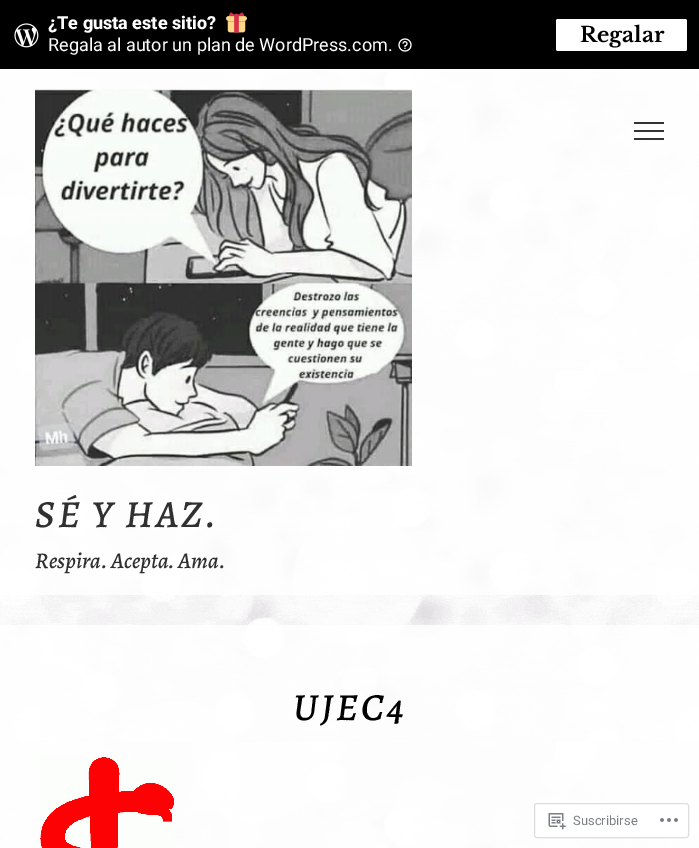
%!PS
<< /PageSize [699 848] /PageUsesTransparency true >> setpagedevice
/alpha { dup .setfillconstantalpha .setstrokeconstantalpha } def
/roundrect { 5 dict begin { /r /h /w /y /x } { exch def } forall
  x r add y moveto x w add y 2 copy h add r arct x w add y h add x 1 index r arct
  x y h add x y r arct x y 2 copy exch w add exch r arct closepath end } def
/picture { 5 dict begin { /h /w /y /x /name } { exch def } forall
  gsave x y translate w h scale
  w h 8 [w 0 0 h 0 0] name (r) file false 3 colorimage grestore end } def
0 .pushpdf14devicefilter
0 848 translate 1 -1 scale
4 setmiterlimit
1 setgray
0 0 699 848 rectfill
(img1.rgb) 0 69 699 779 picture
0 setgray
0 0 699 69 rectfill
(img2.rgb) 14 23 25 25 picture
/Roboto-ExtraBold [18 0 0 -18 0 0] selectfont
1 setgray
48 29 moveto (¿Te gusta este sitio?) show
(img3.rgb) 226 12 21 21 picture
/Roboto-Regular [18 0 0 -18 0 0] selectfont
48 51 moveto (Regala al autor un plan de WordPress.com.) show
(img4.rgb) 398 38 14 14 picture
556 19 131 32 2 roundrect fill
/LibreBaskerville-Bold [21 0 0 -21 0 0] selectfont
0 setgray
580 42 moveto (Regalar) show
0.8 alpha
1 setgray
0 69 699 526 rectfill
1 alpha
0.2 setgray
634 122 30 2 rectfill
634 130 30 2 rectfill
634 138 30 2 rectfill
(img5.rgb) 35 89 377 377 picture
/Alegreya-MediumItalic [38.5 0 0 -38.5 0 0] selectfont
0.188 setgray
35 527 moveto 3 0 (SÉ Y HAZ.) ashow
/Alegreya-MediumItalic [22.5 0 0 -22.5 0 0] selectfont
35 568 moveto (Respira. Acepta. Ama.) show
0.8 alpha
1 setgray
0 625 699 223 rectfill
/Alegreya-MediumItalic [38.5 0 0 -38.5 0 0] selectfont
1 alpha
0 setgray
293 720 moveto 3 0 (UJEC4) ashow
(img6.rgb) 40 757 134 91 picture
0.98 alpha
1 setgray
534.5 803.5 154 34 2.5 roundrect fill
1 alpha
0.867 0.867 0.875 setrgbcolor
534.5 803.5 154 34 2.5 roundrect stroke
(img7.rgb) 548 813 18 17 picture
/Roboto-Regular [13 0 0 -13 0 0] selectfont
0.482 0.498 0.518 setrgbcolor
573 825 moveto (Suscribirse) show
(img8.rgb) 660 818 18 4 picture
.poppdf14devicefilter showpage
